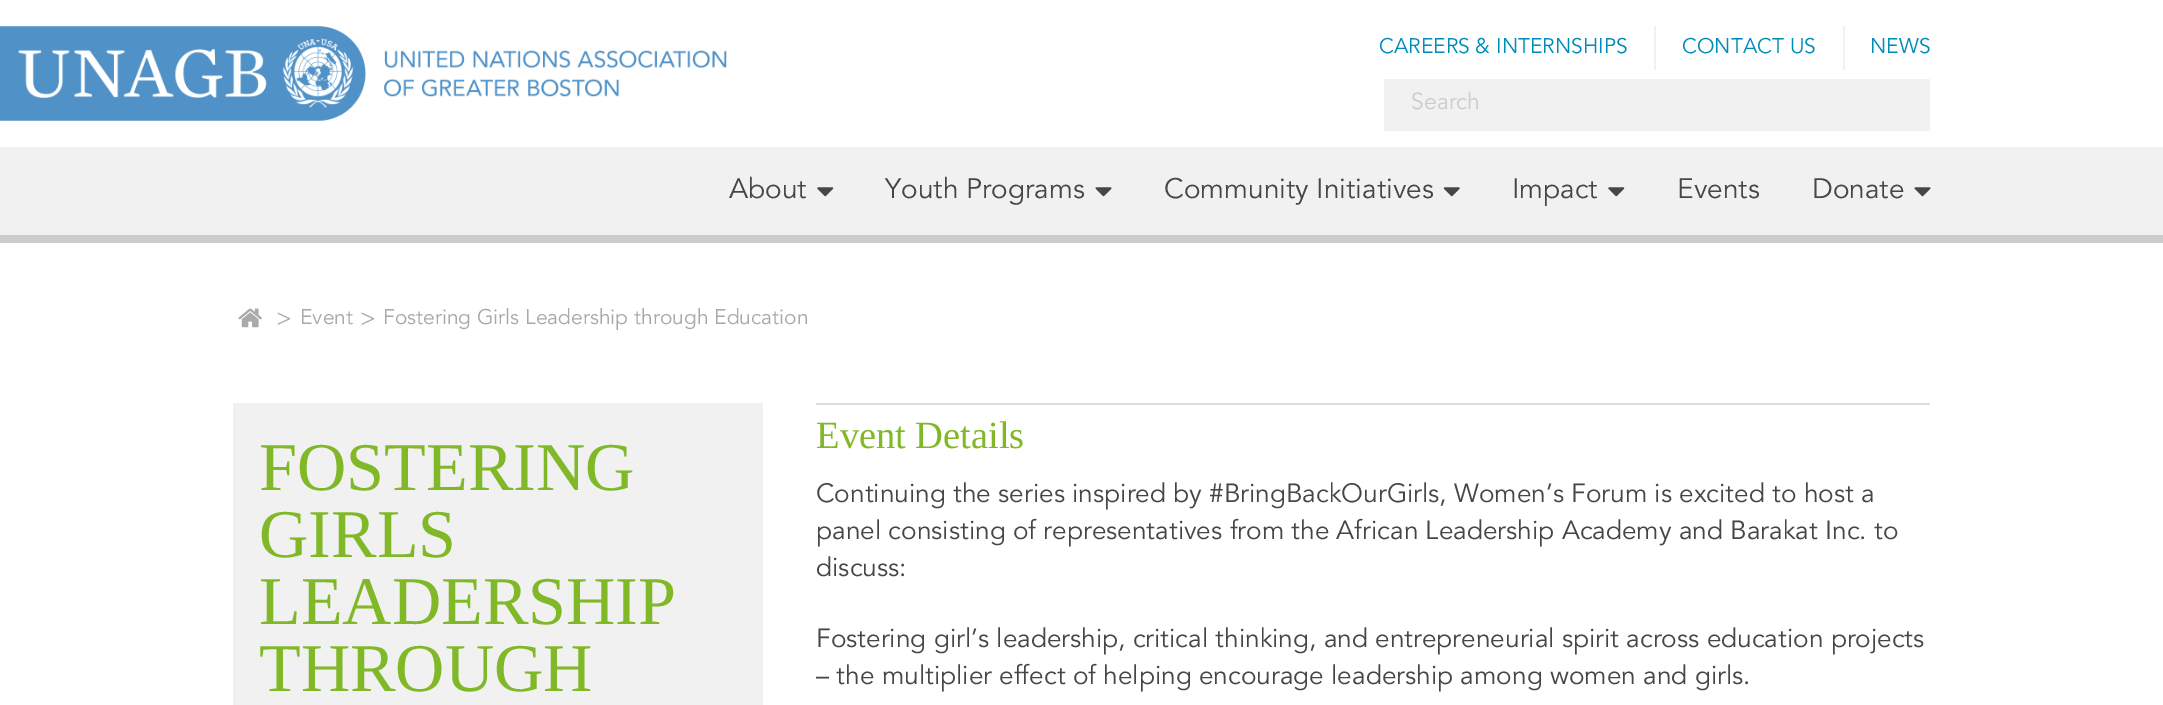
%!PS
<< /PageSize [2163 705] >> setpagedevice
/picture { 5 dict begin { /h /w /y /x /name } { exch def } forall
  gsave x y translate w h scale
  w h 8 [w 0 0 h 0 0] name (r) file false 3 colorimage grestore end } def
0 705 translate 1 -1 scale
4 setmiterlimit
1 setgray
0 0 2163 705 rectfill
(img1.rgb) 0 26 727 95 picture
/Avenir-Regular [21 0 0 -21 0 0] selectfont
0 0.549 0.729 setrgbcolor
1379 53 moveto (CAREERS & INTERNSHIPS) show
0.945 setgray
1654 26 2 44 rectfill
0 0.549 0.729 setrgbcolor
1682 53 moveto (CONTACT US) show
0.945 setgray
1843 26 2 44 rectfill
0 0.549 0.729 setrgbcolor
1870 53 moveto (NEWS) show
0.945 setgray
1384 79 546 52 rectfill
/Avenir-Regular [23 0 0 -23 0 0] selectfont
0.8 setgray
1411 109 moveto (Search) show
0.945 setgray
0 147 2163 88 rectfill
/Avenir-Regular [28 0 0 -28 0 0] selectfont
0.275 setgray
729 198 moveto (About) show
(img2.rgb) 817 187 17 10 picture
885 198 moveto (Youth Programs) show
(img3.rgb) 1095 187 17 10 picture
1164 198 moveto (Community Initiatives) show
(img4.rgb) 1443 187 17 10 picture
1512 198 moveto (Impact) show
(img2.rgb) 1608 187 17 10 picture
1677 198 moveto (Events) show
1812 198 moveto (Donate) show
(img3.rgb) 1914 187 17 10 picture
0.8 setgray
0 235 2163 8 rectfill
(img5.rgb) 238 308 24 20 picture
/Avenir-Regular [24 0 0 -24 0 0] selectfont
0.655 0.663 0.675 setrgbcolor
276 326 moveto (>) show
/Avenir-Regular [21 0 0 -21 0 0] selectfont
300 324 moveto (Event) show
/Avenir-Regular [24 0 0 -24 0 0] selectfont
360 326 moveto (>) show
/Avenir-Regular [21 0 0 -21 0 0] selectfont
383 324 moveto (Fostering Girls Leadership through Education) show
0.945 setgray
233 403 530 302 rectfill
/LiberationSerif-Regular [68.25 0 0 -68.25 0 0] selectfont
0.506 0.722 0.157 setrgbcolor
259 490 moveto (FOSTERING) show
259 557 moveto (GIRLS) show
259 624 moveto (LEADERSHIP) show
259 691 moveto (THROUGH) show
0.867 setgray
816 403 1114 2 rectfill
/LiberationSerif-Regular [38.5 0 0 -38.5 0 0] selectfont
0.506 0.722 0.157 setrgbcolor
816 448 moveto (Event Details) show
/Avenir-Regular [26.25 0 0 -26.25 0 0] selectfont
0.275 setgray
816 502 moveto (Continuing the series inspired by #BringBackOurGirls, Women’s Forum is excited to host a) show
816 539 moveto (panel consisting of representatives from the African Leadership Academy and Barakat Inc. to) show
816 576 moveto (discuss:) show
816 647 moveto (Fostering girl’s leadership, critical thinking, and entrepreneurial spirit across education projects) show
816 684 moveto (– the multiplier effect of helping encourage leadership among women and girls.) show
showpage
